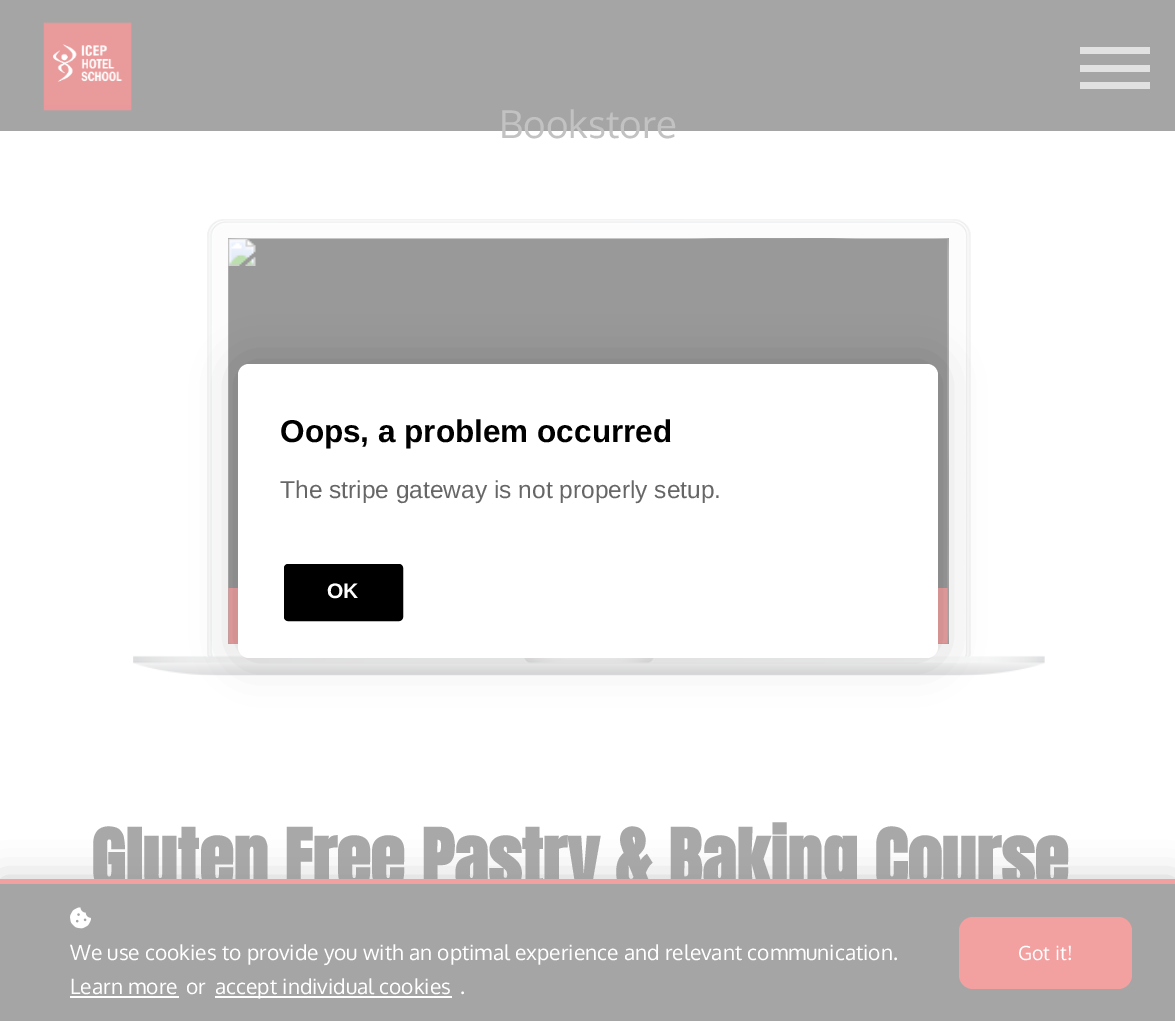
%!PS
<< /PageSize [1175 1021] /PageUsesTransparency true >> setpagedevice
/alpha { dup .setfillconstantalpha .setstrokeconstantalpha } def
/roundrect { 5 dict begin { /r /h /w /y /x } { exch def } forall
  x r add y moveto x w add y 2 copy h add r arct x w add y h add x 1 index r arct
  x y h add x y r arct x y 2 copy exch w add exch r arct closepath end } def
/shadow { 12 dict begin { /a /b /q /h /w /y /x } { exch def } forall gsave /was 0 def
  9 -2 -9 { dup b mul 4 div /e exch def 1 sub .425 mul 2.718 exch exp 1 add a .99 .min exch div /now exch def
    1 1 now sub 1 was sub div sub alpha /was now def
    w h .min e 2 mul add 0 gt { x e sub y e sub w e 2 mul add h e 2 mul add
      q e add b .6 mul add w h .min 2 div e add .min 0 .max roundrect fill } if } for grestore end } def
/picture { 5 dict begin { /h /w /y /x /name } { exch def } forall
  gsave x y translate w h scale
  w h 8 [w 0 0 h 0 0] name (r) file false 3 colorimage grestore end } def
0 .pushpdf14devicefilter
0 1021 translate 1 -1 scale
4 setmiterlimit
1 setgray
0 0 1175 1021 rectfill
0.647 setgray
0 0 1175 131 rectfill
(img1.rgb) 43 22 89 89 picture
0.882 setgray
1080 82 70 7 rectfill
1080 47 70 7 rectfill
1080 65 70 7 rectfill
/Oxygen-Regular [38.5 0 0 -38.5 0 0] selectfont
0.761 setgray
499 138 moveto (Bookstore) show
(img2.rgb) 133 219 912 457 picture
0.6 setgray
228 238 721 406 rectfill
(img3.rgb) 228 238 721 406 picture
/Anton-Bold [70 0 0 -70 0 0] selectfont
0.659 setgray
91 889 moveto (Gluten Free Pastry & Baking Course) show
0 setgray
238 364 700 294 11 22 0.15 shadow
1 setgray
238 364 700 294 11 roundrect fill
/LiberationSans-Bold [31.5 0 0 -31.5 0 0] selectfont
0 setgray
280 442 moveto (Oops, a problem occurred) show
/LiberationSans-Regular [24.5 0 0 -24.5 0 0] selectfont
0.4 setgray
280 498 moveto (The stripe gateway is not properly setup.) show
0 setgray
285 565 117 55 3 roundrect gsave fill grestore
2 setlinewidth
stroke
/LiberationSans-Bold [21 0 0 -21 0 0] selectfont
1 setgray
327 598 moveto (OK) show
0.6 setgray
0 879 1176 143 0 17.5 0.5 shadow
0.647 setgray
0 884 1175 137 rectfill
0.953 0.627 0.627 setrgbcolor
0 879 1175 5 rectfill
(img4.rgb) 70 907 21 22 picture
/Oxygen-Regular [21 0 0 -21 0 0] selectfont
1 setgray
70 960 moveto (We use cookies to provide you with an optimal experience and relevant communication.) show
70 994 moveto (Learn more) show
70 996 109 2 rectfill
186 994 moveto (or) show
215 996 237 2 rectfill
215 994 moveto (accept individual cookies) show
460 994 moveto (.) show
0.953 0.627 0.627 setrgbcolor
959 917 173 72 14 roundrect fill
/Oxygen-Regular [19.5 0 0 -19.5 0 0] selectfont
1 setgray
1018 960 moveto (Got it!) show
.poppdf14devicefilter showpage
